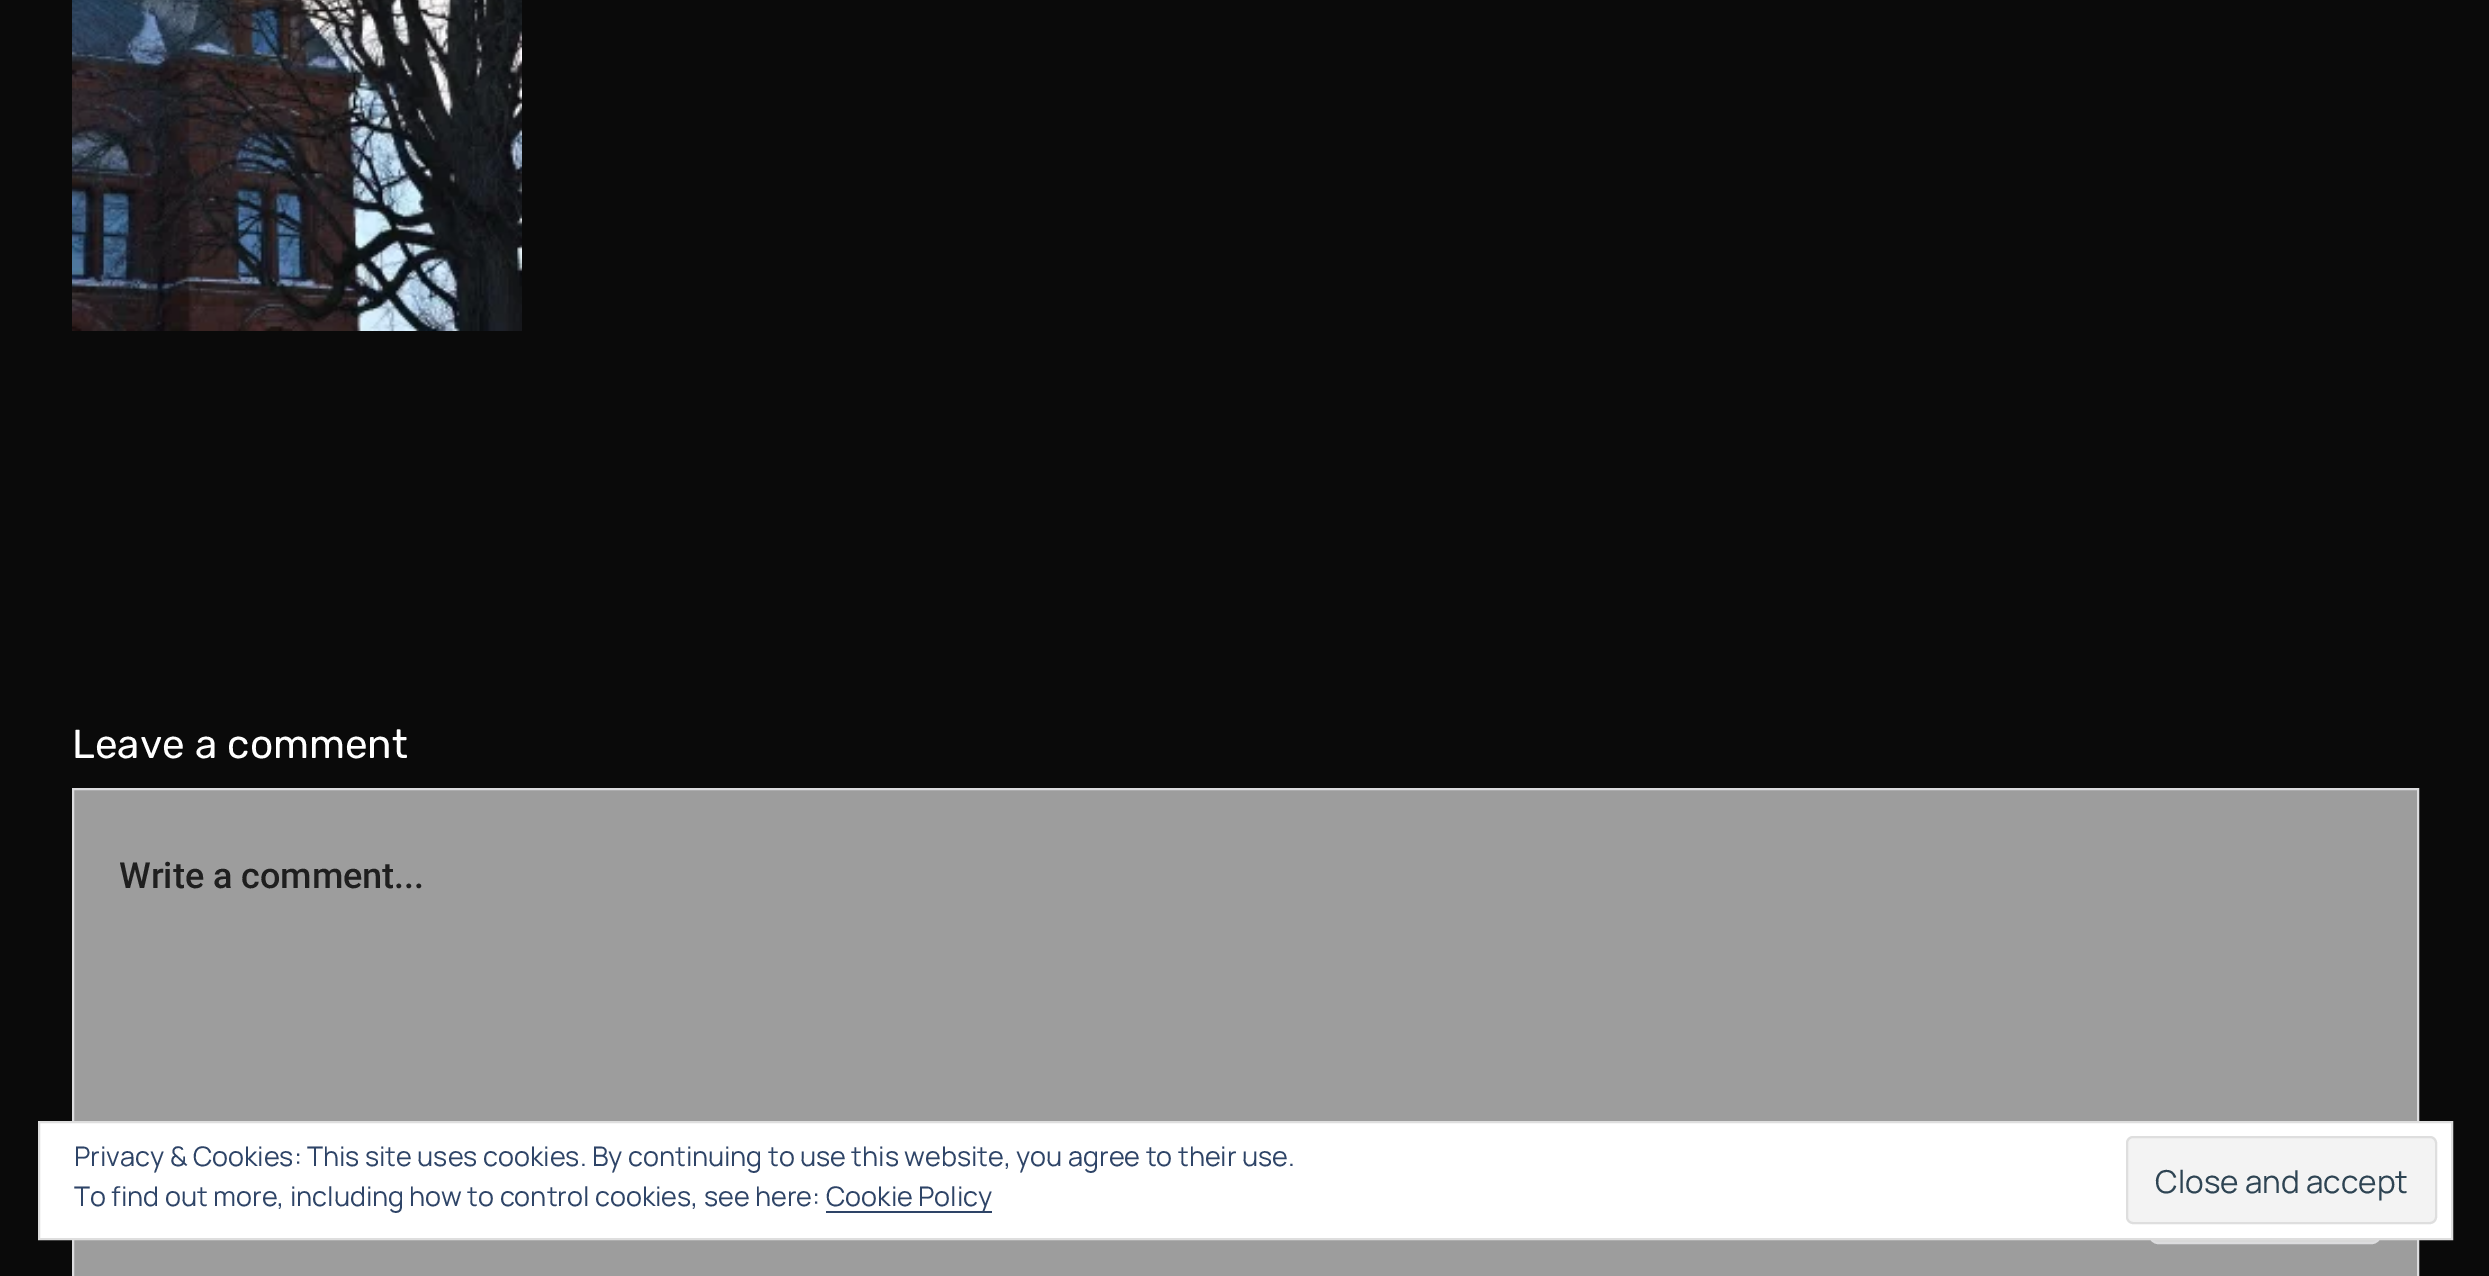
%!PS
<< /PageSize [2489 1276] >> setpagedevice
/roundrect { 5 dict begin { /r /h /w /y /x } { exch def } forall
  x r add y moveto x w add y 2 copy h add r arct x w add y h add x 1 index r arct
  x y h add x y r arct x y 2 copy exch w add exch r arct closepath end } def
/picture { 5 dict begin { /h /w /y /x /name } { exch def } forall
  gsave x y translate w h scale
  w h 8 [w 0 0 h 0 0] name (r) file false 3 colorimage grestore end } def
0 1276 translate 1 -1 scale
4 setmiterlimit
0.039 setgray
0 0 2489 1276 rectfill
(img1.rgb) 72 0 450 331 picture
/Rubik-Regular [40.5 0 0 -40.5 0 0] selectfont
1 setgray
72 758 moveto (Leave a comment) show
0.616 setgray
newpath 73 789 moveto 2418 789 lineto 2418 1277 lineto 73 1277 lineto closepath gsave fill grestore
0.863 0.863 0.871 setrgbcolor
2 setlinewidth
stroke
/Roboto-Medium [36 0 0 -36 0 0] selectfont
0.122 setgray
119 888 moveto (Write a comment...) show
0.847 setgray
2150 1167 230 76 8 roundrect gsave fill grestore
0.863 0.863 0.871 setrgbcolor
stroke
1 setgray
newpath 39 1122 moveto 2452 1122 lineto 2452 1239 lineto 39 1239 lineto closepath gsave fill grestore
0.871 setgray
stroke
/Manrope-Regular [27 0 0 -27 0 0] selectfont
0.18 0.267 0.404 setrgbcolor
74 1166 moveto (Privacy & Cookies: This site uses cookies. By continuing to use this website, you agree to their use.) show
74 1206 moveto (To find out more, including how to control cookies, see here:) show
826 1211 166 2 rectfill
826 1206 moveto (Cookie Policy) show
0.953 setgray
2127 1137 309 86 6 roundrect gsave fill grestore
0.871 setgray
stroke
/Manrope-Regular [31.5 0 0 -31.5 0 0] selectfont
0.18 0.267 0.325 setrgbcolor
2155 1193 moveto (Close and accept) show
showpage
